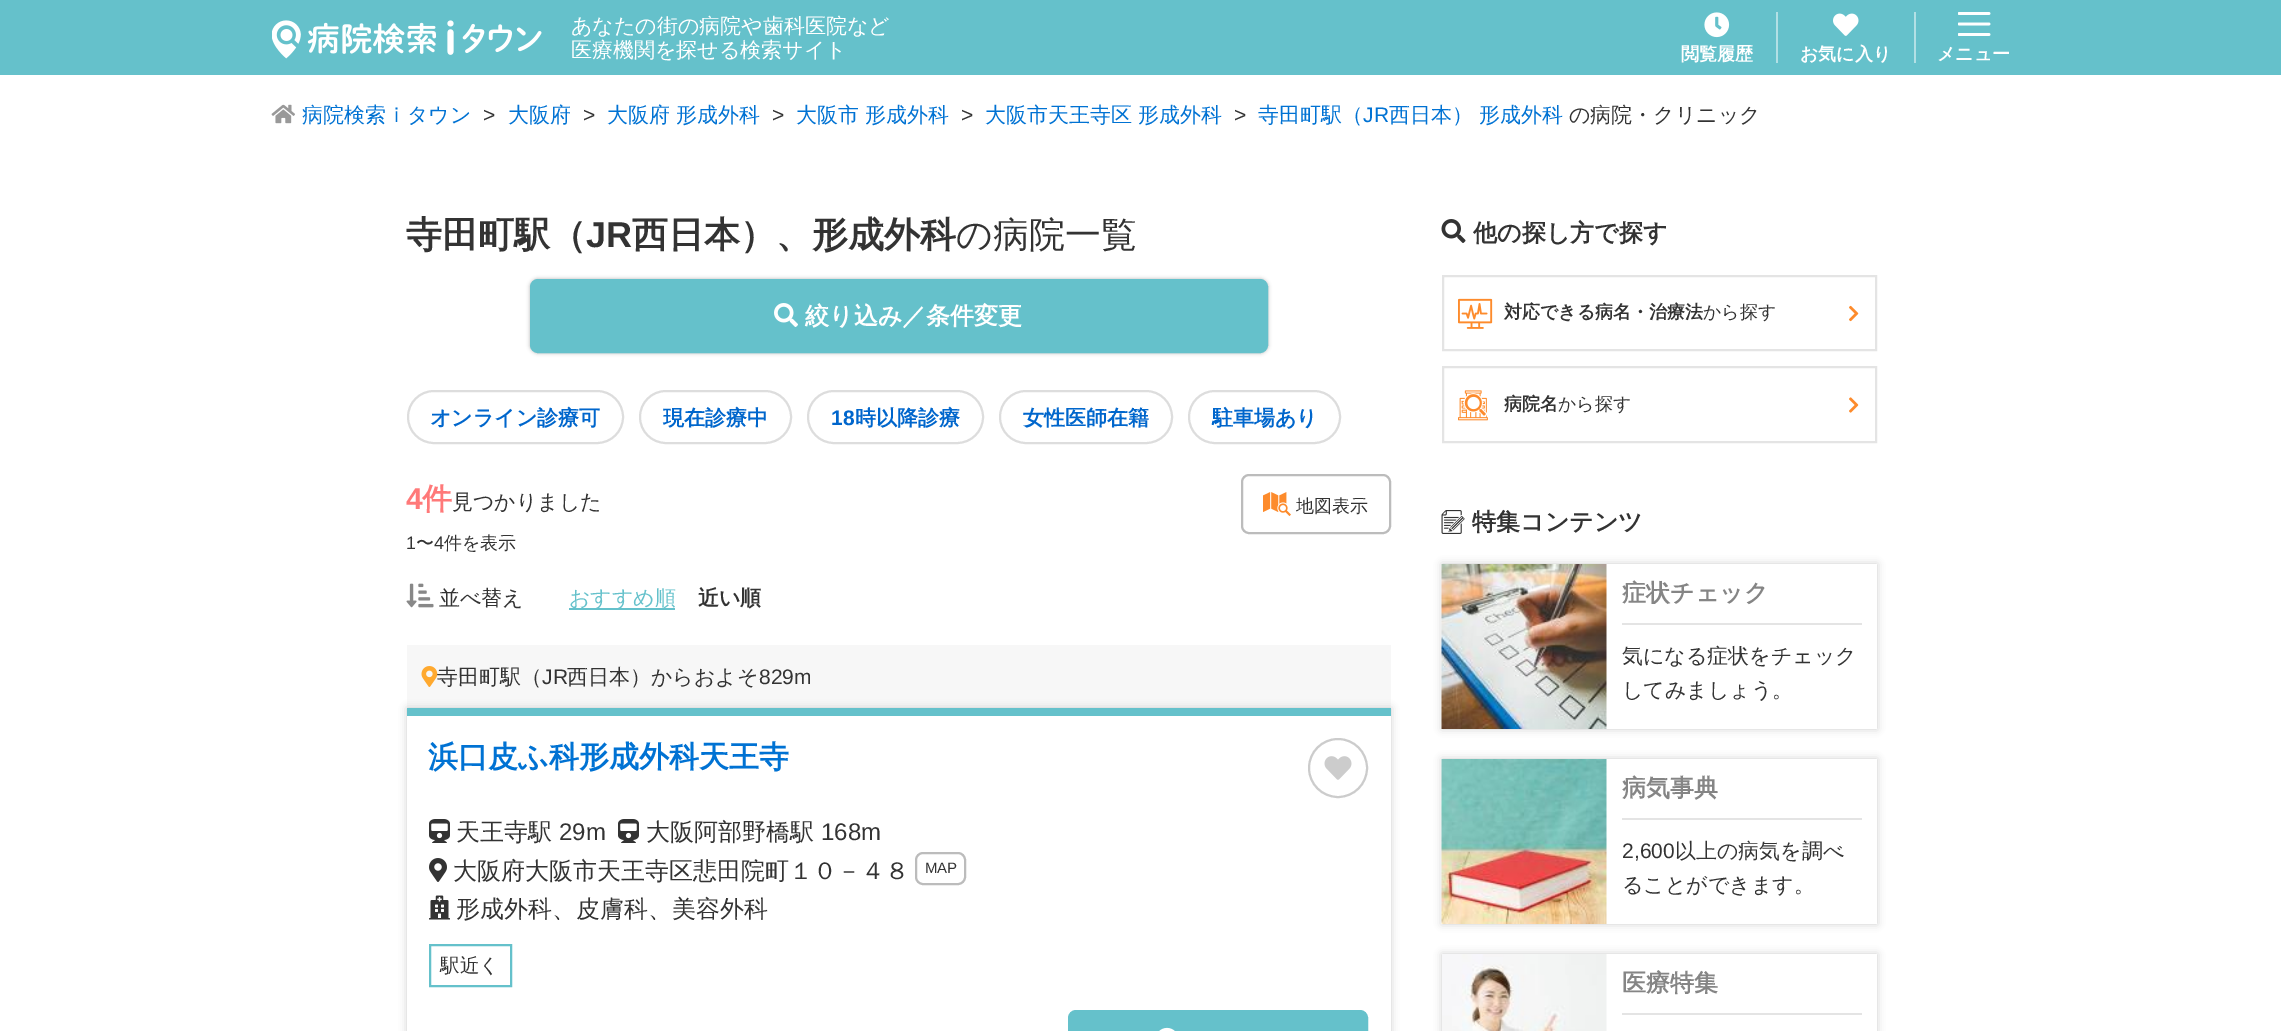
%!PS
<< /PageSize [2281 1031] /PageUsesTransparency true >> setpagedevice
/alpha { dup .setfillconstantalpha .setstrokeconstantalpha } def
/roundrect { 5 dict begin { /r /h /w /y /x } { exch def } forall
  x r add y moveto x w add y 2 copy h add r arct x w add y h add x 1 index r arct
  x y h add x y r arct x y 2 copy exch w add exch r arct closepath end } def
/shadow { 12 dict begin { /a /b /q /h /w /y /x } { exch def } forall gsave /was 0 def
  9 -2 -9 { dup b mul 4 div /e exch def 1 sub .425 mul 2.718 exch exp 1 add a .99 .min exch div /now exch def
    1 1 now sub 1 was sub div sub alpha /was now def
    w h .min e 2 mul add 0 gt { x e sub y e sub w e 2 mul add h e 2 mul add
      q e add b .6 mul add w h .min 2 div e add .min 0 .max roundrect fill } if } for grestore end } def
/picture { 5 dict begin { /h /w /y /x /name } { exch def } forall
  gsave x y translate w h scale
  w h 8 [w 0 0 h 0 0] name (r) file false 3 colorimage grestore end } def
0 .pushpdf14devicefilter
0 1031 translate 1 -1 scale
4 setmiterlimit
1 setgray
0 0 2281 1031 rectfill
0.396 0.757 0.796 setrgbcolor
0 0 2281 75 rectfill
(img1.rgb) 272 20 270 39 picture
/WenQuanYiZenHei-Medium [21 0 0 -21 0 0] selectfont
1 setgray
571 33 moveto (あなたの街の病院や歯科医院など) show
571 57 moveto (医療機関を探せる検索サイト) show
(img2.rgb) 1704 12 26 26 picture
/WenQuanYiZenHei-Bold [18 0 0 -18 0 0] selectfont
1681 60 moveto (閲覧履歴) show
0.698 0.878 0.898 setrgbcolor
1776 12 2 51 rectfill
(img3.rgb) 1833 13 26 23 picture
1 setgray
1800 60 moveto (お気に入り) show
0.698 0.878 0.898 setrgbcolor
1914 12 2 51 rectfill
(img4.rgb) 1958 12 33 24 picture
1 setgray
1937 60 moveto (メニュー) show
(img5.rgb) 271 104 24 20 picture
/WenQuanYiZenHei-Medium [21 0 0 -21 0 0] selectfont
0 0.447 0.827 setrgbcolor
302 122 moveto (病院検索ｉタウン) show
/LiberationSans-Regular [21 0 0 -21 0 0] selectfont
0.2 setgray
483 122 moveto (>) show
/WenQuanYiZenHei-Medium [21 0 0 -21 0 0] selectfont
0 0.447 0.827 setrgbcolor
508 122 moveto (大阪府) show
/LiberationSans-Regular [21 0 0 -21 0 0] selectfont
0.2 setgray
583 122 moveto (>) show
/WenQuanYiZenHei-Medium [21 0 0 -21 0 0] selectfont
0 0.447 0.827 setrgbcolor
607 122 moveto (大阪府 形成外科) show
/LiberationSans-Regular [21 0 0 -21 0 0] selectfont
0.2 setgray
772 122 moveto (>) show
/WenQuanYiZenHei-Medium [21 0 0 -21 0 0] selectfont
0 0.447 0.827 setrgbcolor
796 122 moveto (大阪市 形成外科) show
/LiberationSans-Regular [21 0 0 -21 0 0] selectfont
0.2 setgray
961 122 moveto (>) show
/WenQuanYiZenHei-Medium [21 0 0 -21 0 0] selectfont
0 0.447 0.827 setrgbcolor
985 122 moveto (大阪市天王寺区 形成外科) show
/LiberationSans-Regular [21 0 0 -21 0 0] selectfont
0.2 setgray
1234 122 moveto (>) show
/WenQuanYiZenHei-Medium [21 0 0 -21 0 0] selectfont
0 0.447 0.827 setrgbcolor
1258 122 moveto (寺田町駅（) show
/LiberationSans-Regular [21 0 0 -21 0 0] selectfont
1363 122 moveto (JR) show
/WenQuanYiZenHei-Medium [21 0 0 -21 0 0] selectfont
1389 122 moveto (西日本） 形成外科) show
0.2 setgray
1569 122 moveto (の病院・クリニック) show
/WenQuanYiZenHei-Bold [36 0 0 -36 0 0] selectfont
406 247 moveto (寺田町駅（) show
/LiberationSans-Bold [36 0 0 -36 0 0] selectfont
586 247 moveto (JR) show
/WenQuanYiZenHei-Bold [36 0 0 -36 0 0] selectfont
632 247 moveto (西日本）、形成外科) show
/WenQuanYiZenHei-Medium [36 0 0 -36 0 0] selectfont
956 247 moveto (の病院一覧) show
0 setgray
530 279 738 74 8 2 0.3 shadow
0.396 0.757 0.796 setrgbcolor
531 280 736 72 7 roundrect gsave fill grestore
2 setlinewidth
stroke
(img6.rgb) 774 303 24 24 picture
/WenQuanYiZenHei-Bold [24 0 0 -24 0 0] selectfont
1 setgray
805 324 moveto (絞り込み／条件変更) show
0.867 setgray
408 391 215 52 26 roundrect stroke
/WenQuanYiZenHei-Bold [21 0 0 -21 0 0] selectfont
0 0.4 0.8 setrgbcolor
430 425 moveto (オンライン診療可) show
0.867 setgray
640 391 151 52 26 roundrect stroke
0 0.4 0.8 setrgbcolor
663 425 moveto (現在診療中) show
0.867 setgray
808 391 175 52 26 roundrect stroke
/LiberationSans-Bold [21 0 0 -21 0 0] selectfont
0 0.4 0.8 setrgbcolor
831 425 moveto (18) show
/WenQuanYiZenHei-Bold [21 0 0 -21 0 0] selectfont
855 425 moveto (時以降診療) show
0.867 setgray
1000 391 172 52 26 roundrect stroke
0 0.4 0.8 setrgbcolor
1023 425 moveto (女性医師在籍) show
0.867 setgray
1189 391 151 52 26 roundrect stroke
0 0.4 0.8 setrgbcolor
1212 425 moveto (駐車場あり) show
/LiberationSans-Bold [30 0 0 -30 0 0] selectfont
1 0.475 0.475 setrgbcolor
406 509 moveto (4) show
/WenQuanYiZenHei-Bold [30 0 0 -30 0 0] selectfont
422 509 moveto (件) show
/WenQuanYiZenHei-Medium [21 0 0 -21 0 0] selectfont
0.2 setgray
452 509 moveto (見つかりました) show
/LiberationSans-Regular [18 0 0 -18 0 0] selectfont
406 549 moveto (1) show
/WenQuanYiZenHei-Medium [18 0 0 -18 0 0] selectfont
416 549 moveto (〜) show
/LiberationSans-Regular [18 0 0 -18 0 0] selectfont
434 549 moveto (4) show
/WenQuanYiZenHei-Medium [18 0 0 -18 0 0] selectfont
444 549 moveto (件を表示) show
0.737 setgray
1242 475 148 58 7 roundrect stroke
(img7.rgb) 1263 492 28 24 picture
0.2 setgray
1296 512 moveto (地図表示) show
(img8.rgb) 406 583 28 25 picture
/WenQuanYiZenHei-Medium [21 0 0 -21 0 0] selectfont
439 605 moveto (並べ替え) show
0.396 0.757 0.796 setrgbcolor
569 608 106 2 rectfill
569 605 moveto (おすすめ順) show
/WenQuanYiZenHei-Bold [21 0 0 -21 0 0] selectfont
0.2 setgray
698 605 moveto (近い順) show
0.969 setgray
407 645 984 63 rectfill
/WenQuanYiZenHei-Medium [21 0 0 -21 0 0] selectfont
0.2 setgray
437 684 moveto (寺田町駅（) show
(img9.rgb) 421 666 17 21 picture
/LiberationSans-Regular [21 0 0 -21 0 0] selectfont
542 684 moveto (JR) show
/WenQuanYiZenHei-Medium [21 0 0 -21 0 0] selectfont
567 684 moveto (西日本）からおよそ) show
/LiberationSans-Regular [21 0 0 -21 0 0] selectfont
759 684 moveto (829m) show
0.8 setgray
407 708 984 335 0 4 1 shadow
1 setgray
407 716 984 315 rectfill
0.396 0.757 0.796 setrgbcolor
407 708 984 8 rectfill
/WenQuanYiZenHei-Bold [30 0 0 -30 0 0] selectfont
0 0.447 0.827 setrgbcolor
428 767 moveto (浜口皮ふ科形成外科天王寺) show
0.8 setgray
newpath 1338 768 29 0 360 arc closepath stroke
(img10.rgb) 1324 756 28 24 picture
(img11.rgb) 429 819 21 24 picture
/WenQuanYiZenHei-Medium [24 0 0 -24 0 0] selectfont
0.2 setgray
456 840 moveto (天王寺駅) show
/LiberationSans-Regular [24 0 0 -24 0 0] selectfont
559 840 moveto (29m) show
(img11.rgb) 618 819 21 24 picture
/WenQuanYiZenHei-Medium [24 0 0 -24 0 0] selectfont
646 840 moveto (大阪阿部野橋駅) show
/LiberationSans-Regular [24 0 0 -24 0 0] selectfont
821 840 moveto (168m) show
(img12.rgb) 429 858 18 24 picture
/WenQuanYiZenHei-Medium [24 0 0 -24 0 0] selectfont
453 879 moveto (大阪府大阪市天王寺区悲田院町１０－４８) show
0.737 setgray
916 853 49 31 7 roundrect stroke
/LiberationSans-Regular [15 0 0 -15 0 0] selectfont
0.2 setgray
925 873 moveto (MAP) show
(img13.rgb) 429 895 21 25 picture
/WenQuanYiZenHei-Medium [24 0 0 -24 0 0] selectfont
456 917 moveto (形成外科、皮膚科、美容外科) show
0.396 0.757 0.796 setrgbcolor
430 945 81 41 rectstroke
/WenQuanYiZenHei-Medium [19.5 0 0 -19.5 0 0] selectfont
0.2 setgray
440 972 moveto (駅近く) show
0.396 0.757 0.796 setrgbcolor
1069 1011 298 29 7 roundrect gsave fill grestore
stroke
(img14.rgb) 1159 1027 16 4 picture
(img15.rgb) 1441 219 25 24 picture
/WenQuanYiZenHei-Bold [24 0 0 -24 0 0] selectfont
0.2 setgray
1473 241 moveto (他の探し方で探す) show
0.894 setgray
1443 276 433 74 rectstroke
(img16.rgb) 1458 298 35 31 picture
/WenQuanYiZenHei-Bold [18 0 0 -18 0 0] selectfont
0.2 setgray
1504 318 moveto (対応できる病名・治療法) show
/WenQuanYiZenHei-Medium [18 0 0 -18 0 0] selectfont
1703 318 moveto (から探す) show
(img17.rgb) 1849 305 10 17 picture
0.894 setgray
1443 367 433 75 rectstroke
(img18.rgb) 1458 390 30 31 picture
/WenQuanYiZenHei-Bold [18 0 0 -18 0 0] selectfont
0.2 setgray
1504 410 moveto (病院名) show
/WenQuanYiZenHei-Medium [18 0 0 -18 0 0] selectfont
1558 410 moveto (から探す) show
(img19.rgb) 1849 397 10 16 picture
(img20.rgb) 1441 510 24 24 picture
/WenQuanYiZenHei-Bold [24 0 0 -24 0 0] selectfont
1472 530 moveto (特集コンテンツ) show
0.8 setgray
1442 564 435 165 0 4 1 shadow
1 setgray
1606 564 271 165 rectfill
(img21.rgb) 1441 564 166 165 picture
0.894 setgray
1622 623 240 2 rectfill
0.522 setgray
1622 601 moveto (症状チェック) show
/WenQuanYiZenHei-Medium [21 0 0 -21 0 0] selectfont
0.2 setgray
1622 663 moveto (気になる症状をチェック) show
1622 697 moveto (してみましょう。) show
0.8 setgray
1442 759 435 165 0 4 1 shadow
1 setgray
1606 759 271 165 rectfill
(img22.rgb) 1441 759 166 165 picture
0.894 setgray
1622 818 240 2 rectfill
/WenQuanYiZenHei-Bold [24 0 0 -24 0 0] selectfont
0.522 setgray
1622 796 moveto (病気事典) show
/LiberationSans-Regular [21 0 0 -21 0 0] selectfont
0.2 setgray
1622 858 moveto (2,600) show
/WenQuanYiZenHei-Medium [21 0 0 -21 0 0] selectfont
1675 858 moveto (以上の病気を調べ) show
1622 892 moveto (ることができます。) show
0.8 setgray
1442 954 435 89 0 4 1 shadow
1 setgray
1606 954 271 77 rectfill
(img23.rgb) 1442 954 165 77 picture
0.894 setgray
1622 1013 240 2 rectfill
/WenQuanYiZenHei-Bold [24 0 0 -24 0 0] selectfont
0.522 setgray
1622 991 moveto (医療特集) show
.poppdf14devicefilter showpage
